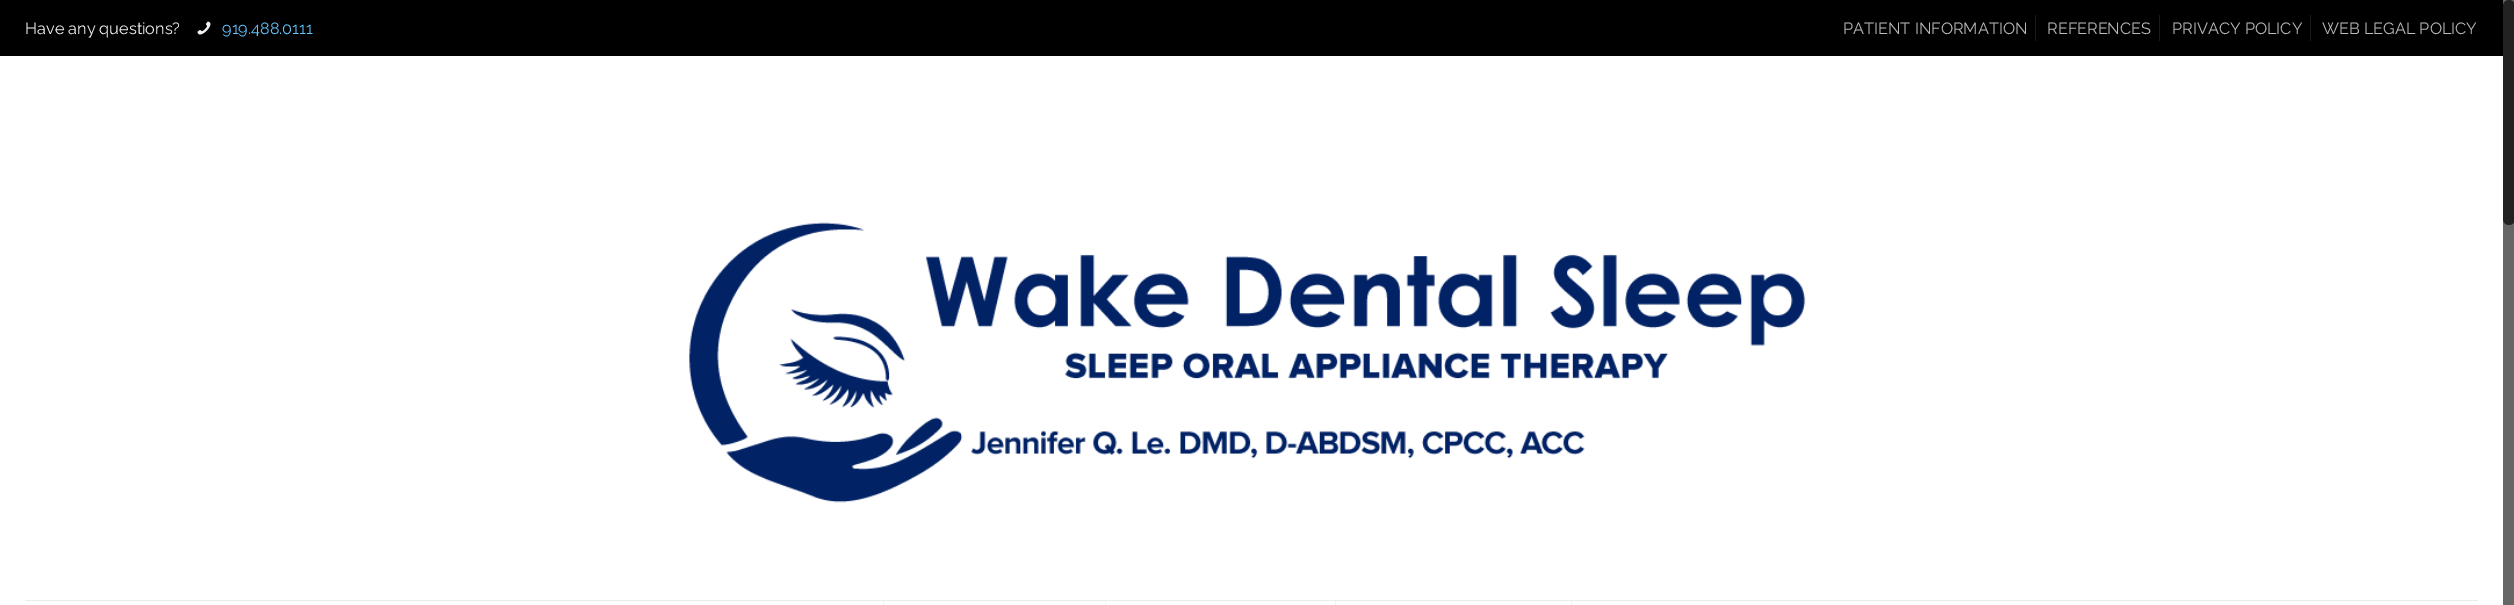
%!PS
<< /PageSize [2514 605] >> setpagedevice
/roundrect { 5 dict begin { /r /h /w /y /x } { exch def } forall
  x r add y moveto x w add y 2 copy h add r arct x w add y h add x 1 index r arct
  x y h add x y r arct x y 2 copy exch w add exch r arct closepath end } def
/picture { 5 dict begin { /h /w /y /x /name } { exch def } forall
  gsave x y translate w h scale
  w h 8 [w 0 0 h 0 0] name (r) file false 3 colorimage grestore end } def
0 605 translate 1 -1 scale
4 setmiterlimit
0 setgray
0 0 2514 605 rectfill
/Raleway-Regular [16.25 0 0 -16.25 0 0] selectfont
0.949 setgray
25 34 moveto (Have any questions?) show
(img1.rgb) 197 21 14 14 picture
0.392 0.765 0.984 setrgbcolor
222 34 moveto (919.488.0111) show
0.102 setgray
2035 15 1 26 rectfill
0.733 setgray
1843 34 moveto (PATIENT INFORMATION) show
0.102 setgray
2159 15 1 26 rectfill
0.733 setgray
2047 34 moveto (REFERENCES) show
0.102 setgray
2310 15 1 26 rectfill
0.733 setgray
2172 34 moveto (PRIVACY POLICY) show
2322 34 moveto (WEB LEGAL POLICY) show
1 setgray
0 56 2503 549 rectfill
0.922 setgray
25 600 2453 1 rectfill
(img2.rgb) 689 222 1117 281 picture
0.949 setgray
883 601 1 4 rectfill
1105 601 1 4 rectfill
1335 601 1 4 rectfill
1571 601 1 4 rectfill
0.4 setgray
2503 0 11 605 rectfill
0.133 setgray
2503 0 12 225 6 roundrect fill
showpage
